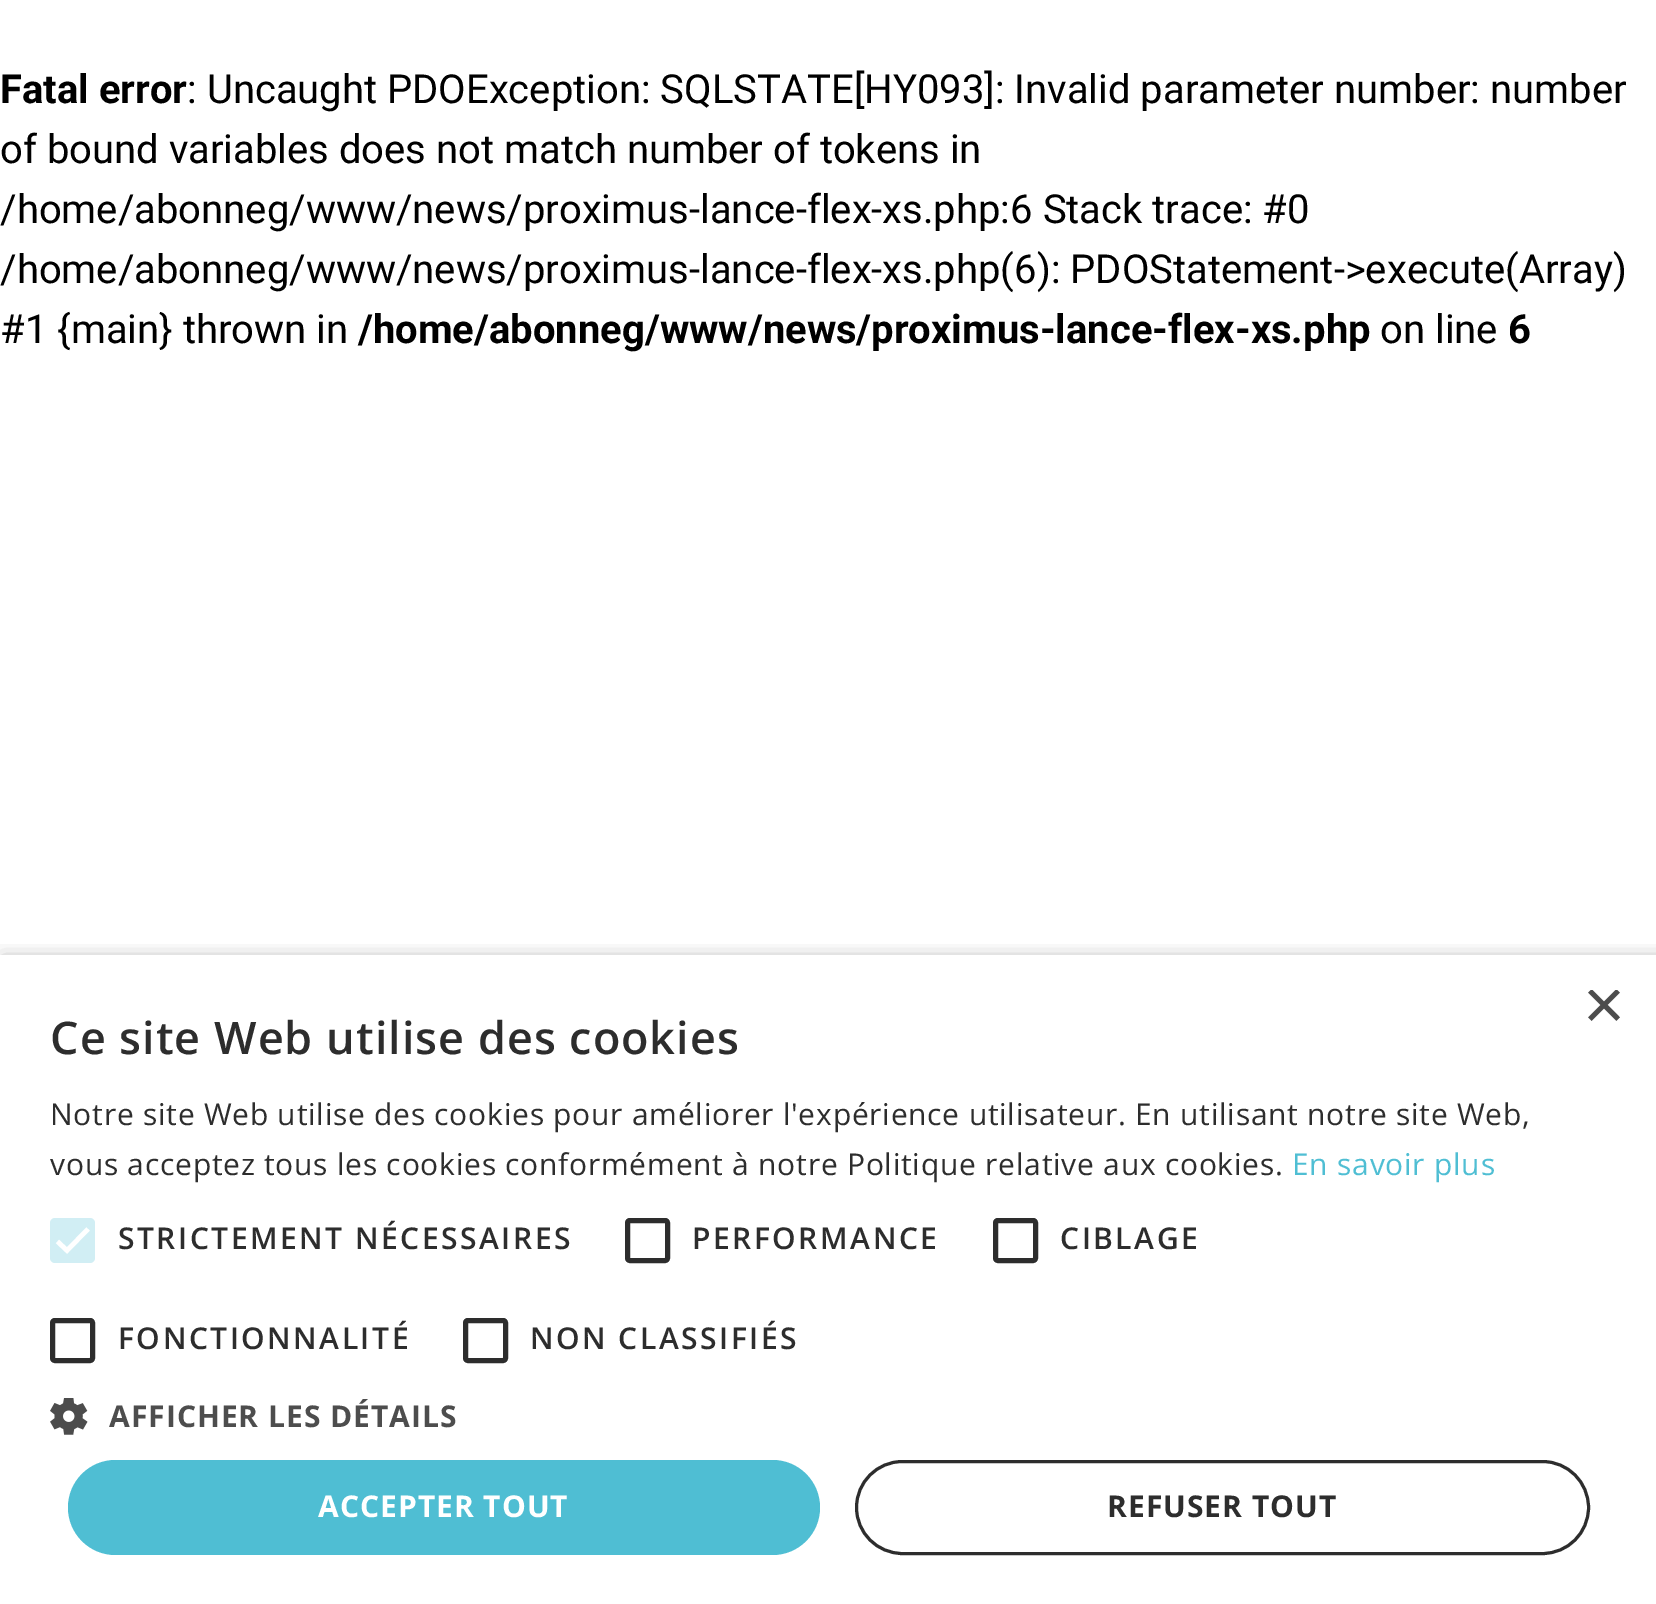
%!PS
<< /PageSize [1656 1604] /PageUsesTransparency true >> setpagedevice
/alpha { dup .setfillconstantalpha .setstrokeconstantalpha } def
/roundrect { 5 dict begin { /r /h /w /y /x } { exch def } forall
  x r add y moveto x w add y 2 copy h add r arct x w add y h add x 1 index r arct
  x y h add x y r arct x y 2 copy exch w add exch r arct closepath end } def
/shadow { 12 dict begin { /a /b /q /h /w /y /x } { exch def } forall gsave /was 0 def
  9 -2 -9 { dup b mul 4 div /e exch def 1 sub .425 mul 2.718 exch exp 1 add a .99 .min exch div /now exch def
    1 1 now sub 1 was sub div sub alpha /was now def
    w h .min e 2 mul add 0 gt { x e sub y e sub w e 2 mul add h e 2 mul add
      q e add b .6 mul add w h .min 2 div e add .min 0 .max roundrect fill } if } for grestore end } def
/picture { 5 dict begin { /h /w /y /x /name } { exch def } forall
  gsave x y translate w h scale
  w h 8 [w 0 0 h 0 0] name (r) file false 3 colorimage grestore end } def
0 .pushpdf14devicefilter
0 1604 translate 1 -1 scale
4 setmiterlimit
1 setgray
0 0 1656 1604 rectfill
/Roboto-Bold [40 0 0 -40 0 0] selectfont
0 setgray
0 103 moveto (Fatal error) show
/Roboto-Regular [40 0 0 -40 0 0] selectfont
187 103 moveto (: Uncaught PDOException: SQLSTATE[HY093]: Invalid parameter number: number) show
0 163 moveto (of bound variables does not match number of tokens in) show
0 223 moveto (/home/abonneg/www/news/proximus-lance-flex-xs.php:6 Stack trace: #0) show
0 283 moveto (/home/abonneg/www/news/proximus-lance-flex-xs.php\(6\): PDOStatement->execute\(Array\)) show
0 343 moveto (#1 {main} thrown in) show
/Roboto-Bold [40 0 0 -40 0 0] selectfont
358 343 moveto (/home/abonneg/www/news/proximus-lance-flex-xs.php) show
/Roboto-Regular [40 0 0 -40 0 0] selectfont
1380 343 moveto (on line) show
/Roboto-Bold [40 0 0 -40 0 0] selectfont
1508 343 moveto (6) show
gsave
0 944 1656 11 rectclip
3 960 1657 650 0 10 0.35 shadow
grestore
gsave
1583 990 37 38 rectclip
/LiberationSans-Regular [72 0 0 -72 0 0] selectfont
0.302 setgray
1583 1029 moveto (×) show
grestore
/OpenSans-SemiBold [45 0 0 -45 0 0] selectfont
0.176 setgray
50 1054 moveto 1 0 (Ce site Web utilise des cookies) ashow
/OpenSans-Regular [30 0 0 -30 0 0] selectfont
50 1125 moveto 0.75 0 (Notre site Web utilise des cookies pour améliorer l'expérience utilisateur. En utilisant notre site Web,) ashow
50 1175 moveto 0.75 0 (vous acceptez tous les cookies conformément à notre Politique relative aux cookies.) ashow
0.31 0.745 0.827 setrgbcolor
1292 1175 moveto 0.75 0 (En savoir plus) ashow
0.82 0.933 0.957 setrgbcolor
50 1218 45 45 5 roundrect fill
1 setgray
4.6 setlinewidth
newpath 57.5 1241.5 moveto 67 1250.5 lineto 88 1229 lineto stroke
/OpenSans-SemiBold [30 0 0 -30 0 0] selectfont
0.176 setgray
118 1249 moveto 2.5 0 (STRICTEMENT NÉCESSAIRES) ashow
5 setlinewidth
627.5 1220.5 40 40 2.5 roundrect stroke
692 1249 moveto 2.5 0 (PERFORMANCE) ashow
995.5 1220.5 40 40 2.5 roundrect stroke
1060 1249 moveto 2.5 0 (CIBLAGE) ashow
52.5 1320.5 40 40 2.5 roundrect stroke
118 1349 moveto 2.5 0 (FONCTIONNALITÉ) ashow
465.5 1320.5 40 40 2.5 roundrect stroke
530 1349 moveto 2.5 0 (NON CLASSIFIÉS) ashow
(img1.rgb) 50 1398 38 37 picture
/OpenSans-Bold [30 0 0 -30 0 0] selectfont
0.302 setgray
109 1427 moveto 1 0 (AFFICHER LES DÉTAILS) ashow
0.31 0.745 0.827 setrgbcolor
68 1460 752 95 47.5 roundrect fill
1 setgray
318 1517 moveto 1 0 (ACCEPTER TOUT) ashow
0.176 setgray
3 setlinewidth
856.5 1461.5 732 92 46 roundrect stroke
1107 1517 moveto 1 0 (REFUSER TOUT) ashow
.poppdf14devicefilter showpage
